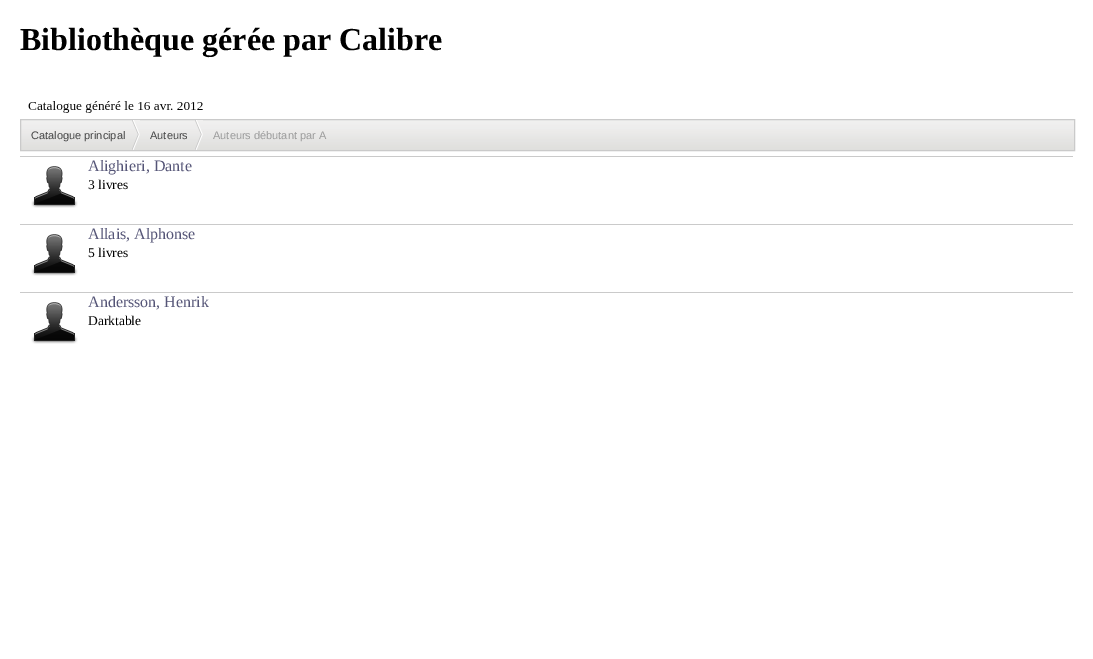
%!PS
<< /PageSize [1093 659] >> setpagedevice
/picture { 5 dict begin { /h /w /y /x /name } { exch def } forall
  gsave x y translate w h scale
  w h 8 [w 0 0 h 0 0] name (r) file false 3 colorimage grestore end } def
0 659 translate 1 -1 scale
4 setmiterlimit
1 setgray
0 0 1093 659 rectfill
/LiberationSerif-Bold [32 0 0 -32 0 0] selectfont
0 setgray
20 50 moveto (Bibliothèque gérée par Calibre) show
(img1.rgb) 28 101 175 12 picture
(img2.rgb) 21 120 1053 30 picture
0.792 setgray
20.5 119.5 1054 31 rectstroke
(img3.rgb) 132 120 8 30 picture
/LiberationSans-Regular [11 0 0 -11 0 0] selectfont
0.271 setgray
31 139 moveto (Catalogue principal) show
(img3.rgb) 195 120 8 30 picture
150 139 moveto (Auteurs) show
0.608 setgray
213 139 moveto (Auteurs débutant par A) show
0.792 setgray
20 156 1053 1 rectfill
(img4.rgb) 31 166 47 42 picture
/LiberationSerif-Regular [16 0 0 -16 0 0] selectfont
0.333 0.333 0.467 setrgbcolor
88 171 moveto (Alighieri, Dante) show
/LiberationSerif-Regular [13.5 0 0 -13.5 0 0] selectfont
0 setgray
88 189 moveto (3 livres) show
0.792 setgray
20 224 1053 1 rectfill
(img4.rgb) 31 234 47 42 picture
/LiberationSerif-Regular [16 0 0 -16 0 0] selectfont
0.333 0.333 0.467 setrgbcolor
88 239 moveto (Allais, Alphonse) show
/LiberationSerif-Regular [13.5 0 0 -13.5 0 0] selectfont
0 setgray
88 257 moveto (5 livres) show
0.792 setgray
20 292 1053 1 rectfill
(img4.rgb) 31 302 47 42 picture
/LiberationSerif-Regular [16 0 0 -16 0 0] selectfont
0.333 0.333 0.467 setrgbcolor
88 307 moveto (Andersson, Henrik) show
/LiberationSerif-Regular [13.5 0 0 -13.5 0 0] selectfont
0 setgray
88 325 moveto (Darktable) show
showpage
